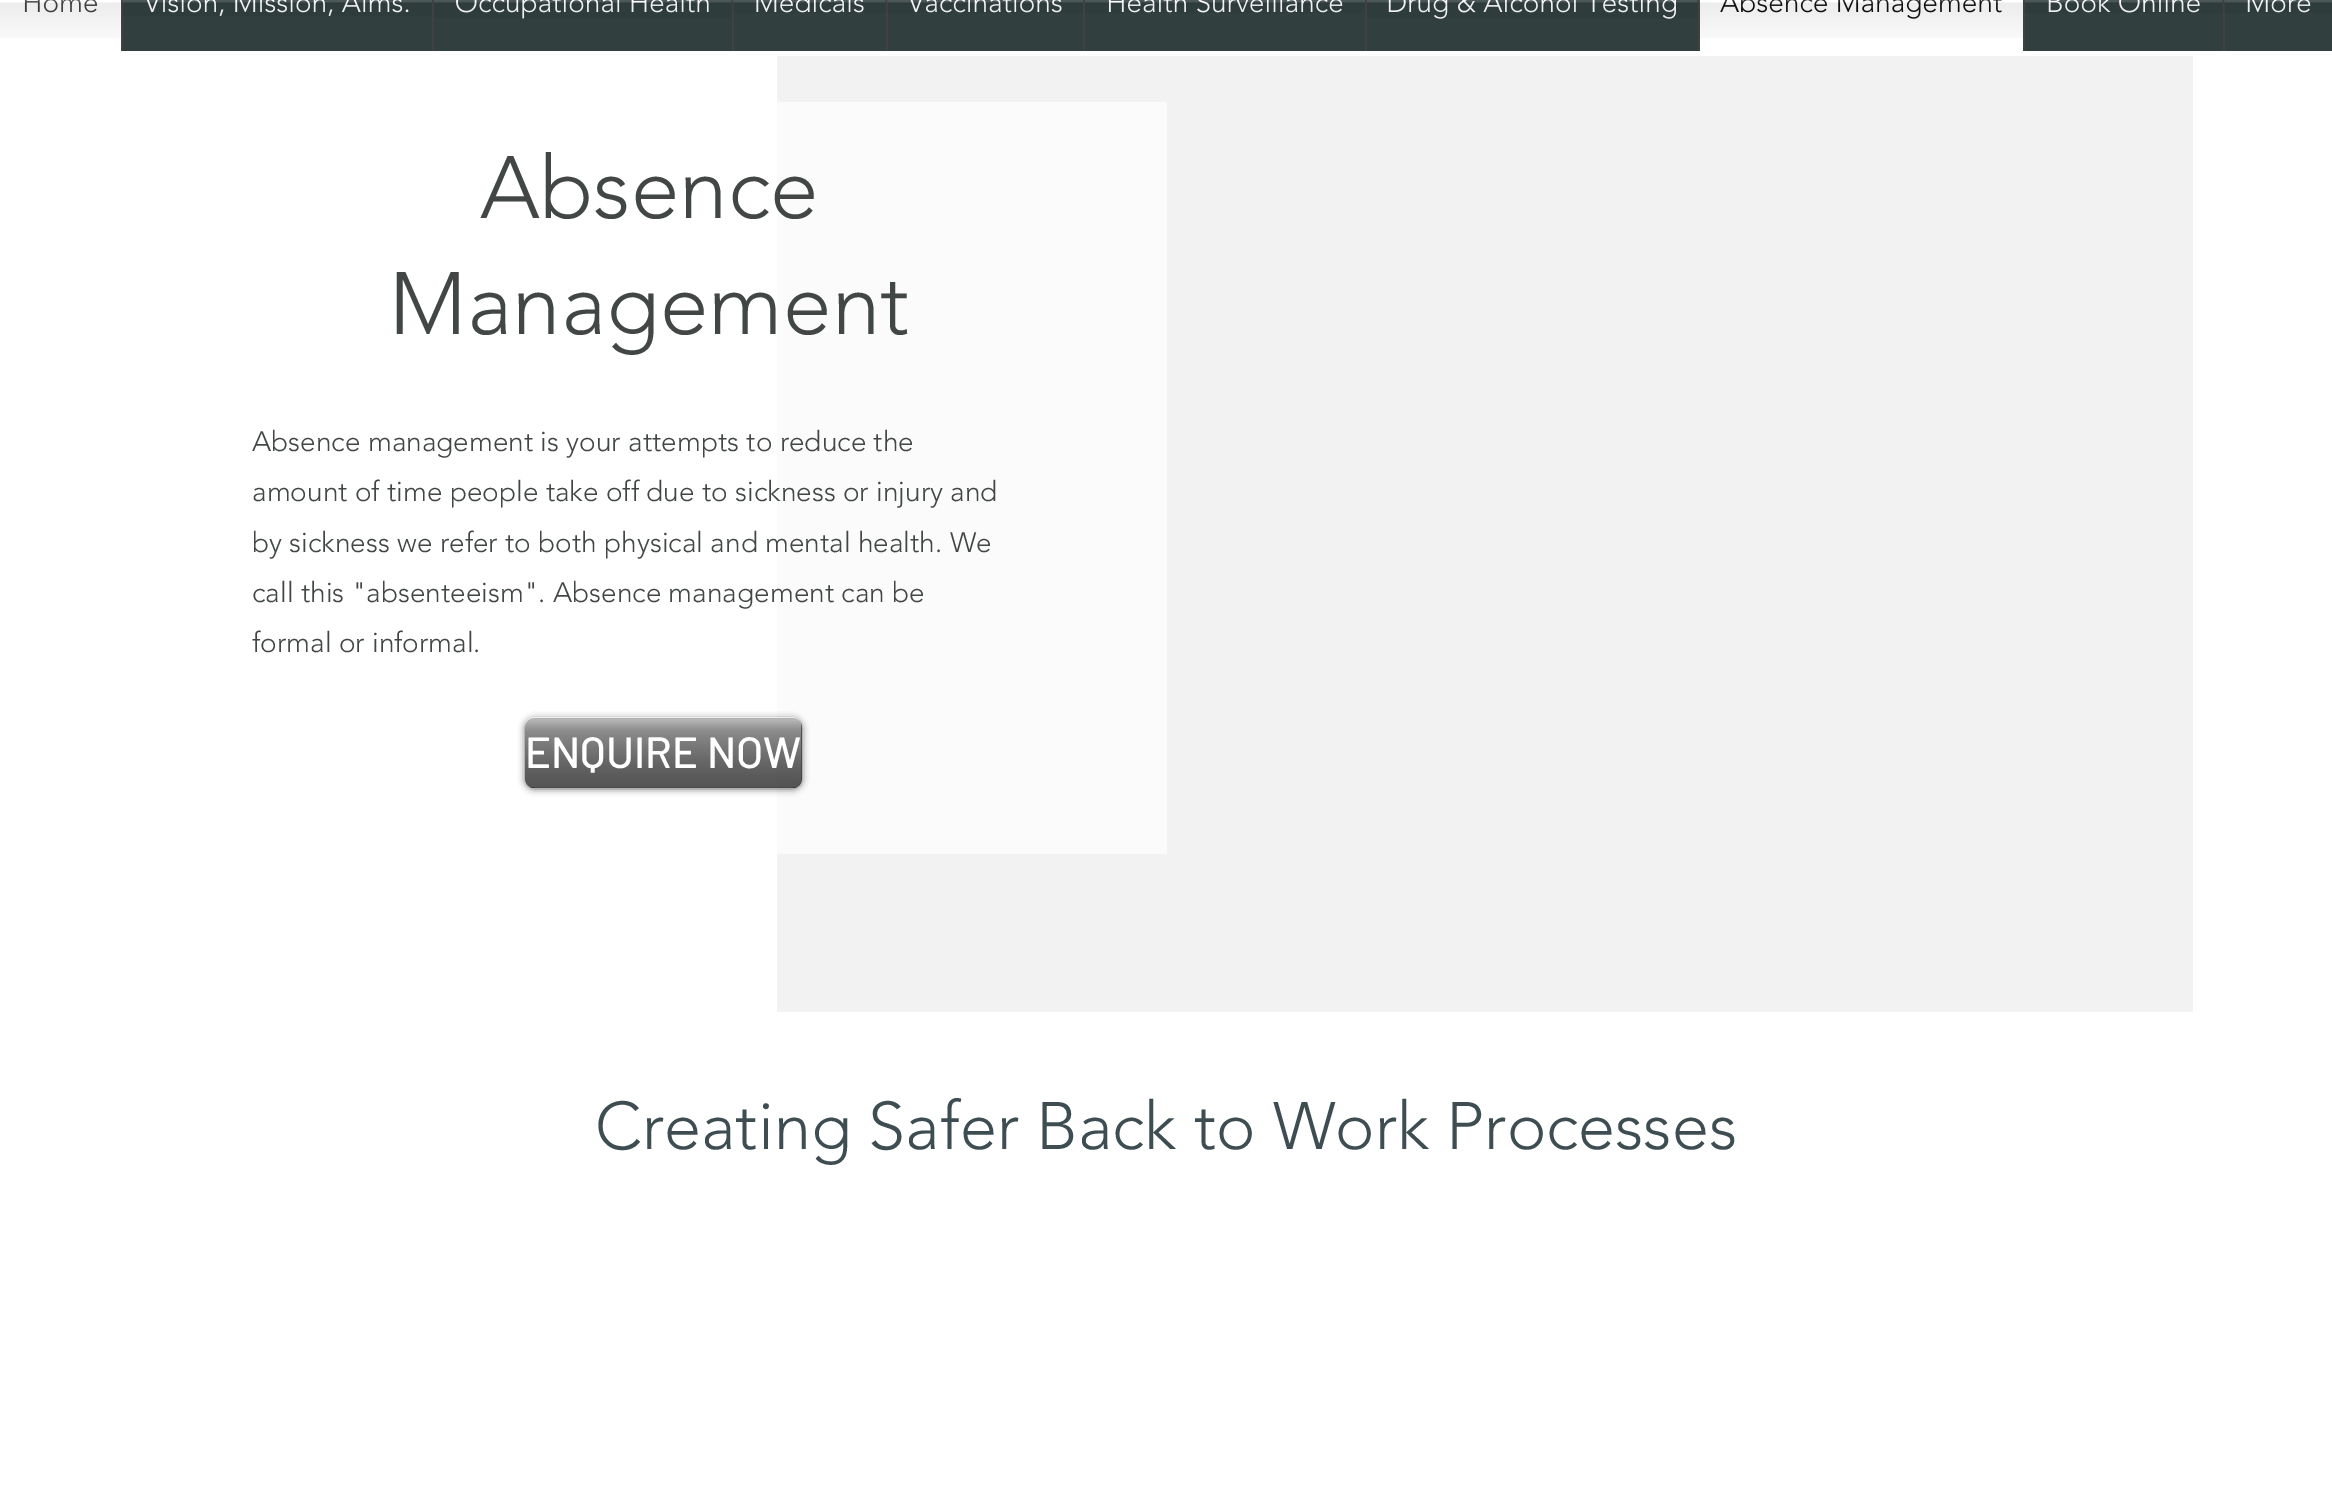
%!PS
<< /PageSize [2332 1499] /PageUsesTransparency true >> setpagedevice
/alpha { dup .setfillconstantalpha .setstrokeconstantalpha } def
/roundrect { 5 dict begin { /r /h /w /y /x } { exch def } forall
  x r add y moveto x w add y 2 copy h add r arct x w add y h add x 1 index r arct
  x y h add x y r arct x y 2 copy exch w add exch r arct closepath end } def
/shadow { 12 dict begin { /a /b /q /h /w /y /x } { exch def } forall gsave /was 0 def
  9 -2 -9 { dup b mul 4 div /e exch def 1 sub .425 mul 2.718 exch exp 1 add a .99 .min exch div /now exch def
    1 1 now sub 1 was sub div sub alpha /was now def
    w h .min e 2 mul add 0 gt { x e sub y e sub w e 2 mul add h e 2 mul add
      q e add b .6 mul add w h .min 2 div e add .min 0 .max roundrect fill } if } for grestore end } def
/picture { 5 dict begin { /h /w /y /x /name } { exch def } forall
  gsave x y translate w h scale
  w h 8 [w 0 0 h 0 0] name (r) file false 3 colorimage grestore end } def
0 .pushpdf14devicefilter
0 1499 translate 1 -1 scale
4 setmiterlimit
1 setgray
0 0 2332 1499 rectfill
/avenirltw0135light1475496-Light [28 0 0 -28 0 0] selectfont
0.255 setgray
22 12 moveto (Home) show
(img1.rgb) 0 0 121 38 picture
0.192 0.251 0.247 setrgbcolor
123 0 309 51 rectfill
0.255 setgray
121 0 2 51 rectfill
1 setgray
144 12 moveto (Vision, Mission, Aims.) show
(img2.rgb) 122 0 310 16 picture
0.192 0.251 0.247 setrgbcolor
434 0 298 51 rectfill
0.255 setgray
432 0 2 51 rectfill
1 setgray
455 12 moveto (Occupational Health) show
(img3.rgb) 434 0 298 19 picture
0.192 0.251 0.247 setrgbcolor
734 0 152 51 rectfill
0.255 setgray
732 0 2 51 rectfill
1 setgray
754 12 moveto (Medicals) show
(img4.rgb) 733 0 153 13 picture
0.192 0.251 0.247 setrgbcolor
888 0 195 51 rectfill
0.255 setgray
886 0 2 51 rectfill
1 setgray
908 12 moveto (Vaccinations) show
(img5.rgb) 887 0 196 13 picture
0.192 0.251 0.247 setrgbcolor
1085 0 280 51 rectfill
0.255 setgray
1083 0 2 51 rectfill
1 setgray
1106 12 moveto (Health Surveillance) show
(img6.rgb) 1085 0 280 13 picture
0.192 0.251 0.247 setrgbcolor
1367 0 331 51 rectfill
0.255 setgray
1365 0 2 51 rectfill
1 setgray
1386 12 moveto (Drug & Alcohol Testing) show
(img7.rgb) 1366 0 332 19 picture
0.255 setgray
1698 0 2 51 rectfill
0.067 setgray
1720 12 moveto (Absence Management) show
(img8.rgb) 1699 0 324 38 picture
0.192 0.251 0.247 setrgbcolor
2025 0 198 51 rectfill
0.255 setgray
2023 0 2 51 rectfill
1 setgray
2046 12 moveto (Book Online) show
(img9.rgb) 2024 0 199 13 picture
0.192 0.251 0.247 setrgbcolor
2225 0 107 51 rectfill
0.255 setgray
2223 0 2 51 rectfill
1 setgray
2245 12 moveto (More) show
(img10.rgb) 2224 0 108 13 picture
0.949 setgray
777 56 1416 956 rectfill
0.984 setgray
777 102 390 752 rectfill
/avenirltw0135light1475496-Light [87.5 0 0 -87.5 0 0] selectfont
0.259 0.278 0.275 setrgbcolor
480 218 moveto (Absence) show
389 334 moveto (Management) show
/avenirltw0135light1475496-Light [28 0 0 -28 0 0] selectfont
252 451 moveto (Absence management is your attempts to reduce the) show
252 501 moveto (amount of time people take off due to sickness or injury and) show
252 552 moveto (by sickness we refer to both physical and mental health. We) show
252 602 moveto (call this "absenteeism". Absence management can be) show
252 652 moveto (formal or informal.) show
gsave
newpath 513 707 moveto 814 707 lineto 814 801 lineto 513 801 lineto closepath 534 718 moveto 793 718 lineto 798 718 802 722 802 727 curveto 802 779 lineto 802 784 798 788 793 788 curveto 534 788 lineto 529 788 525 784 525 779 curveto 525 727 lineto 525 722 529 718 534 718 curveto closepath eoclip newpath
0 setgray
525 719 277 70 9 3.5 0.6 shadow
grestore
0.75 alpha
0.067 setgray
525 718 277 70 9 roundrect fill
1 alpha
(img11.rgb) 525 717 277 70 picture
/Barlow-Medium [43.75 0 0 -43.75 0 0] selectfont
1 setgray
525 768 moveto (ENQUIRE NOW) show
/avenirltw0135light1475496-Light [66.5 0 0 -66.5 0 0] selectfont
0.239 0.302 0.322 setrgbcolor
595 1149 moveto (Creating Safer Back to Work Processes) show
.poppdf14devicefilter showpage
